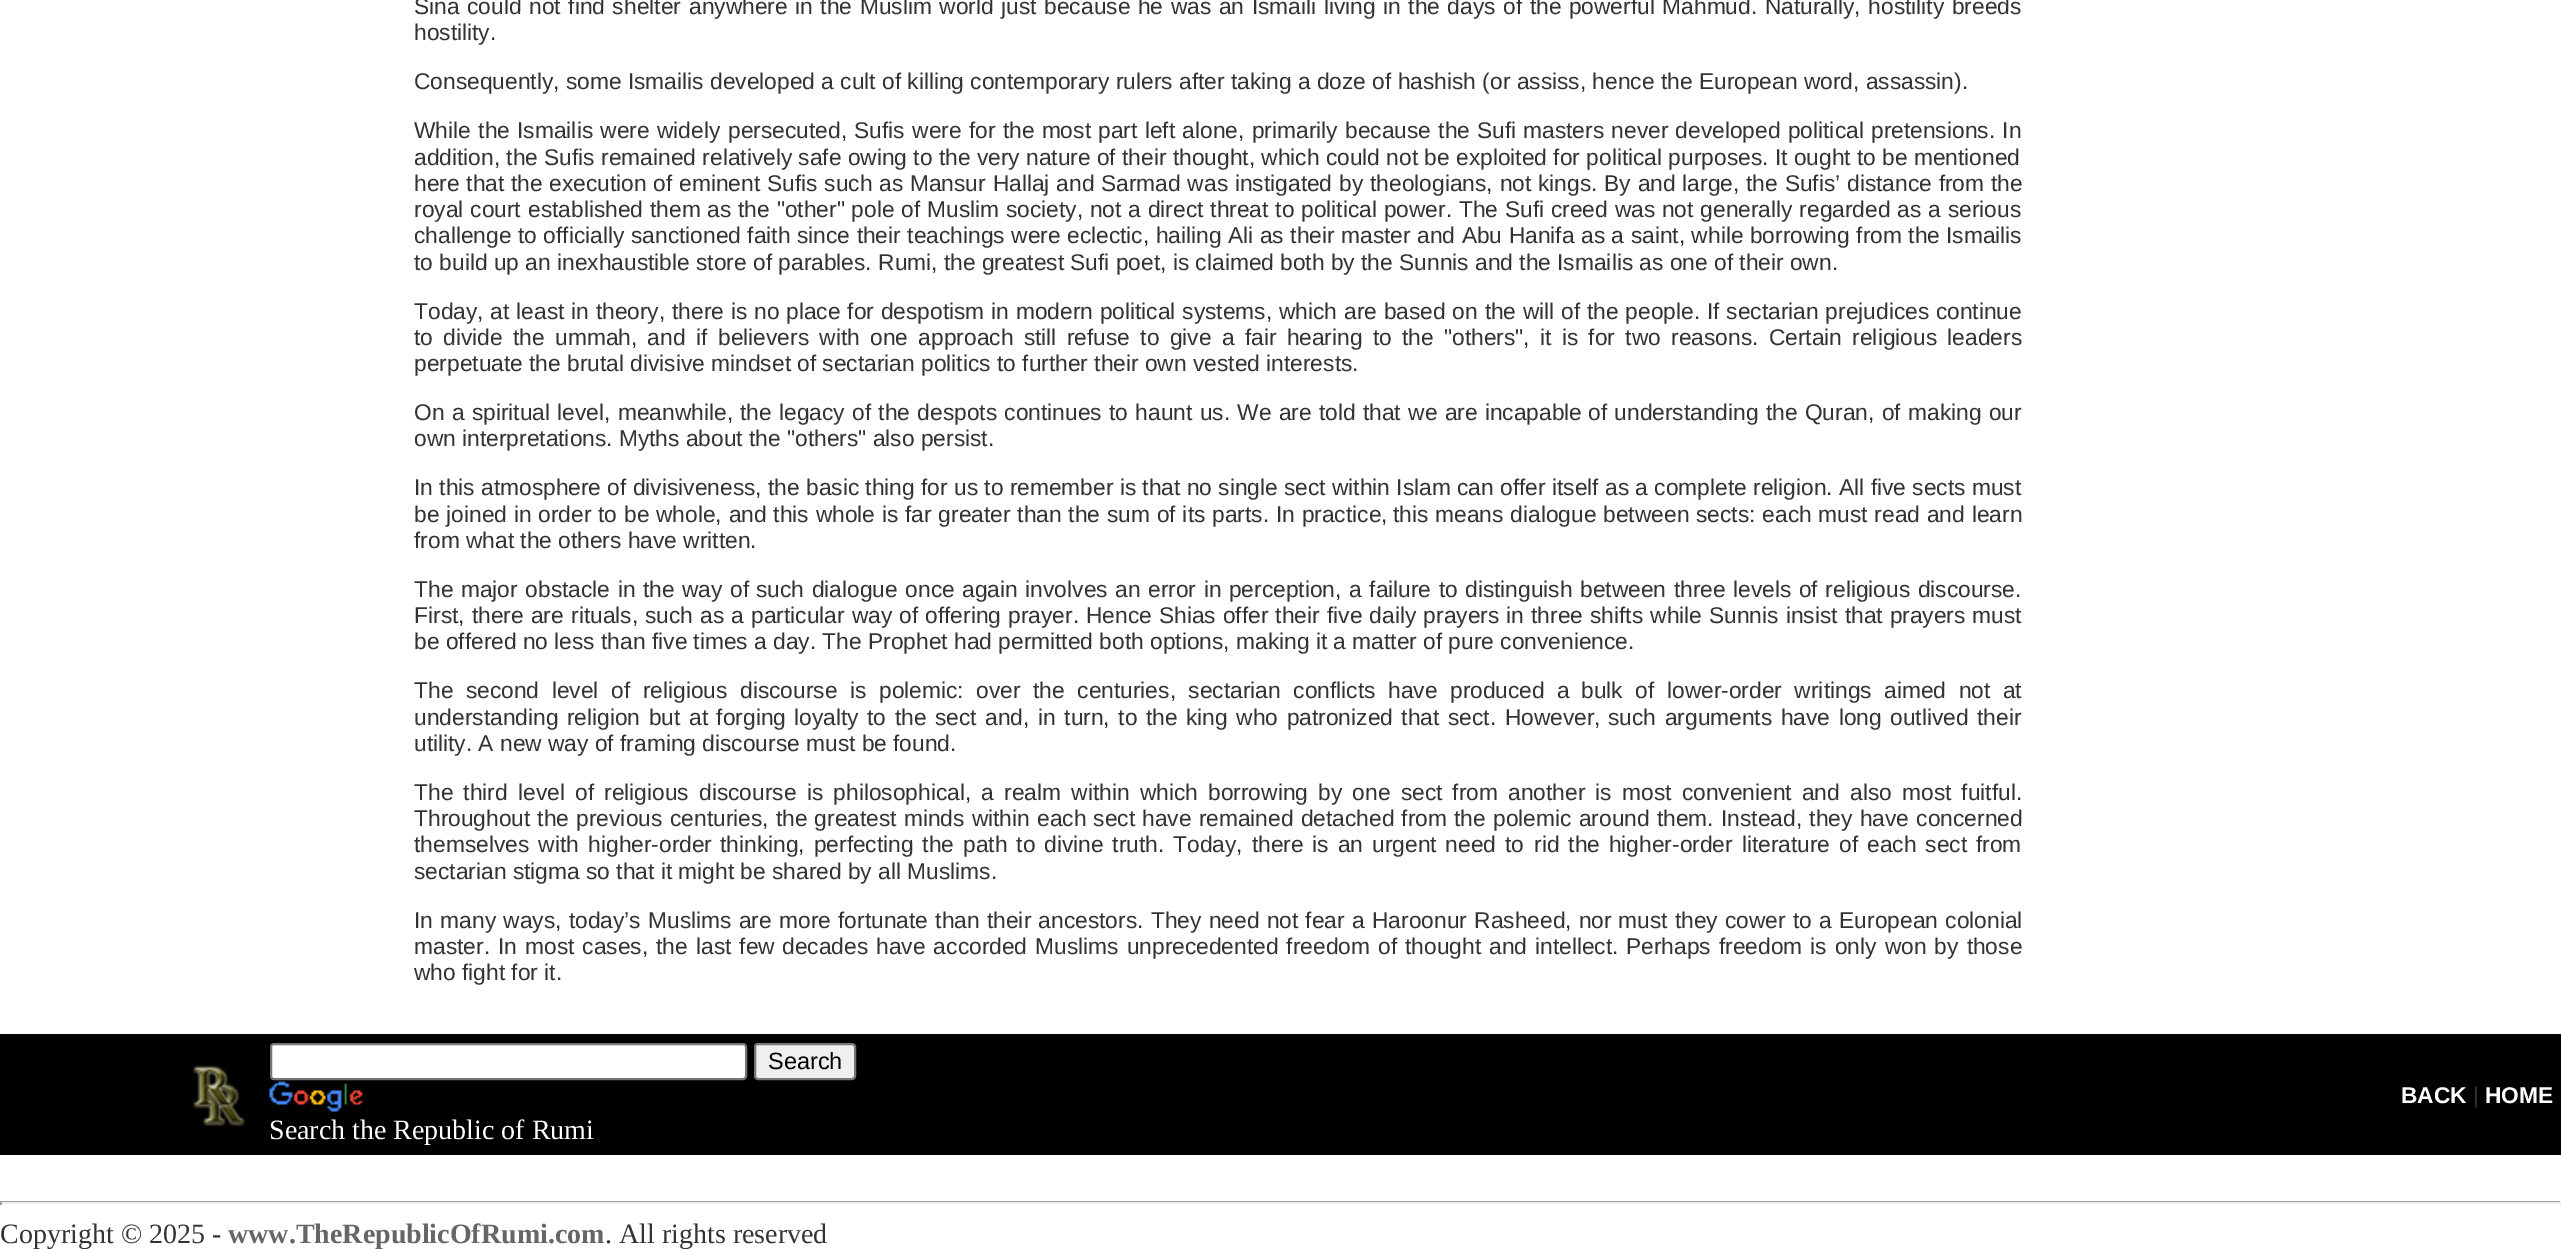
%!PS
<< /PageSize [2561 1249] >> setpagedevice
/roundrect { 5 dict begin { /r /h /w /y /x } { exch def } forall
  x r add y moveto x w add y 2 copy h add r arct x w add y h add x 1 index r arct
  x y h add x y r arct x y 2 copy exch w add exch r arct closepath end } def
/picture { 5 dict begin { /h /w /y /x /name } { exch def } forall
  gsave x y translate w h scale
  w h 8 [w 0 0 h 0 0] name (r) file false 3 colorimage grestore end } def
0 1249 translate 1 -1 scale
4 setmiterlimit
1 setgray
0 0 2561 1249 rectfill
/LiberationSans-Regular [22.75 0 0 -22.75 0 0] selectfont
0.2 setgray
414 14 moveto 1.25 0 32 (Sina could not find shelter) widthshow
689 14 moveto 1.25 0 32 (anywhere in the Muslim world just because he was an Ismaili living in the days) widthshow
1503 14 moveto 1.25 0 32 (of the powerful Mahmud. Naturally, hostility breeds) widthshow
414 40 moveto (hostility.) show
414 89 moveto (Consequently, some Ismailis developed a cult of killing contemporary rulers after taking a doze of hashish \(or assiss, hence the European word, assassin\).) show
414 138 moveto 1 0 32 (While the Ismailis were widely) widthshow
728 138 moveto 1 0 32 (persecuted, Sufis were for the most part left alone, primarily because the Sufi) widthshow
1523 138 moveto 1 0 32 (masters never developed political pretensions. In) widthshow
414 165 moveto (addition, the Sufis remained relatively safe owing to the very nature of their thought, which could not be exploited for political purposes. It ought to be mentioned) show
414 191 moveto 0.5 0 32 (here that the) widthshow
549 191 moveto 0.5 0 32 (execution of eminent Sufis such as Mansur Hallaj and Sarmad was instigated by) widthshow
1370 191 moveto 0.5 0 32 (theologians, not kings. By and large, the Sufis’ distance from the) widthshow
414 217 moveto 0.5 0 32 (royal court) widthshow
528 217 moveto 0.5 0 32 (established them as the "other" pole of Muslim society, not a direct threat to) widthshow
1301 217 moveto 0.5 0 32 (political power. The Sufi creed was not generally regarded as a serious) widthshow
414 243 moveto 0.2 0 32 (challenge to officially sanctioned faith since their teachings were eclectic, hailing Ali as their master and Abu Hanifa as a saint, while borrowing from the) widthshow
1946 243 moveto (Ismailis) show
414 270 moveto (to build up an inexhaustible store of parables. Rumi, the greatest Sufi poet, is claimed both by the Sunnis and the Ismailis as one of their own.) show
414 319 moveto 0.5 0 32 (Today, at least in theory, there is) widthshow
754 319 moveto 0.5 0 32 (no place for despotism in modern political systems, which are based on the will) widthshow
1561 319 moveto 0.5 0 32 (of the people. If sectarian prejudices continue) widthshow
414 345 moveto 4 0 32 (to divide the ummah, and if) widthshow
718 345 moveto 4 0 32 (believers with one approach still refuse to give a fair hearing to the "others",) widthshow
1540 345 moveto 4 0 32 (it is for two reasons. Certain religious leaders) widthshow
414 371 moveto (perpetuate the brutal divisive mindset of sectarian politics to further their own vested interests.) show
414 420 moveto 1 0 32 (On a spiritual level, meanwhile, the) widthshow
779 420 moveto 1 0 32 (legacy of the despots continues to haunt us. We are told that we are incapable) widthshow
1588 420 moveto 1 0 32 (of understanding the Quran, of making our) widthshow
414 446 moveto (own interpretations. Myths about the "others" also persist.) show
414 495 moveto (In this atmosphere of divisiveness, the basic thing for us to remember is that no single sect within Islam can offer itself as a complete religion. All five sects must) show
414 522 moveto 0.5 0 32 (be joined in order to be) widthshow
656 522 moveto 0.5 0 32 (whole, and this whole is far greater than the sum of its parts. In practice,) widthshow
1393 522 moveto 0.5 0 32 (this means dialogue between sects: each must read and learn) widthshow
414 548 moveto (from what the others have written.) show
414 597 moveto 1.25 0 32 (The major obstacle in the way of) widthshow
756 597 moveto 1.25 0 32 (such dialogue once again involves an error in perception, a failure to) widthshow
1465 597 moveto 1.25 0 32 (distinguish between three levels of religious discourse.) widthshow
414 623 moveto 0.75 0 32 (First, there are) widthshow
571 623 moveto 0.75 0 32 (rituals, such as a particular way of offering prayer. Hence Shias offer their) widthshow
1327 623 moveto 0.75 0 32 (five daily prayers in three shifts while Sunnis insist that prayers must) widthshow
414 649 moveto (be offered no less than five times a day. The Prophet had permitted both options, making it a matter of pure convenience.) show
414 698 moveto 6.25 0 32 (The second level of religious) widthshow
740 698 moveto 6.25 0 32 (discourse is polemic: over the centuries, sectarian conflicts have produced a) widthshow
1581 698 moveto 6.25 0 32 (bulk of lower-order writings aimed not at) widthshow
414 725 moveto 2.25 0 32 (understanding religion but at forging) widthshow
794 725 moveto 2.25 0 32 (loyalty to the sect and, in turn, to the king who patronized that sect. However,) widthshow
1608 725 moveto 2.25 0 32 (such arguments have long outlived their) widthshow
414 751 moveto (utility. A new way of framing discourse must be found.) show
414 800 moveto 3.9 0 32 (The third level of religious) widthshow
699 800 moveto 3.9 0 32 (discourse is philosophical, a realm within which borrowing by one sect from) widthshow
1508 800 moveto 3.9 0 32 (another is most convenient and also most fuitful.) widthshow
414 826 moveto 0.8 0 32 (Throughout the previous) widthshow
670 826 moveto 0.8 0 32 (centuries, the greatest minds within each sect have remained detached from the) widthshow
1493 826 moveto 1 0 32 (polemic around them. Instead, they have concerned) widthshow
414 852 moveto 3 0 32 (themselves with higher-order) widthshow
720 852 moveto 2.6 0 32 (thinking, perfecting the path to divine truth. Today, there is an urgent need to) widthshow
1534 852 moveto 2.6 0 32 (rid the higher-order literature of each sect from) widthshow
414 879 moveto (sectarian stigma so that it might be shared by all Muslims.) show
414 928 moveto 1 0 32 (In many ways, today’s Muslims are) widthshow
779 928 moveto 1 0 32 (more fortunate than their ancestors. They need not fear a Haroonur Rasheed, nor) widthshow
1618 928 moveto 1 0 32 (must they cower to a European colonial) widthshow
414 954 moveto 1.75 0 32 (master. In most cases, the last few) widthshow
782 954 moveto 1.75 0 32 (decades have accorded Muslims unprecedented freedom of thought and intellect.) widthshow
1626 954 moveto 1.75 0 32 (Perhaps freedom is only won by those) widthshow
414 980 moveto (who fight for it.) show
0 setgray
0 1034 2561 121 rectfill
(img1.rgb) 192 1065 54 61 picture
1 setgray
271 1044 475 35 3 roundrect gsave fill grestore
0.463 setgray
2 setlinewidth
stroke
0.937 setgray
755 1044 100 35 3 roundrect gsave fill grestore
0.463 setgray
stroke
/LiberationSans-Regular [23.5 0 0 -23.5 0 0] selectfont
0 setgray
768 1069 moveto (Search) show
(img2.rgb) 269 1081 94 31 picture
/LiberationSerif-Regular [28 0 0 -28 0 0] selectfont
1 setgray
269 1139 moveto (Search the Republic of Rumi) show
/LiberationSans-Bold [22.75 0 0 -22.75 0 0] selectfont
2401 1103 moveto (BACK) show
/LiberationSans-Regular [22.75 0 0 -22.75 0 0] selectfont
0.2 setgray
2473 1103 moveto (|) show
/LiberationSans-Bold [22.75 0 0 -22.75 0 0] selectfont
1 setgray
2485 1103 moveto (HOME) show
0.624 setgray
0 1201 2561 1 rectfill
0.933 setgray
2560 1201 1 4 rectfill
0 1202 2561 2 rectfill
0.624 setgray
0 1201 2 4 rectfill
/LiberationSerif-Regular [28 0 0 -28 0 0] selectfont
0.2 setgray
0 1243 moveto (Copyright © 2025 -) show
/LiberationSerif-Bold [28 0 0 -28 0 0] selectfont
0.4 setgray
228 1243 moveto (www.TheRepublicOfRumi.com) show
/LiberationSerif-Regular [28 0 0 -28 0 0] selectfont
0.2 setgray
605 1243 moveto (. All rights reserved) show
showpage
